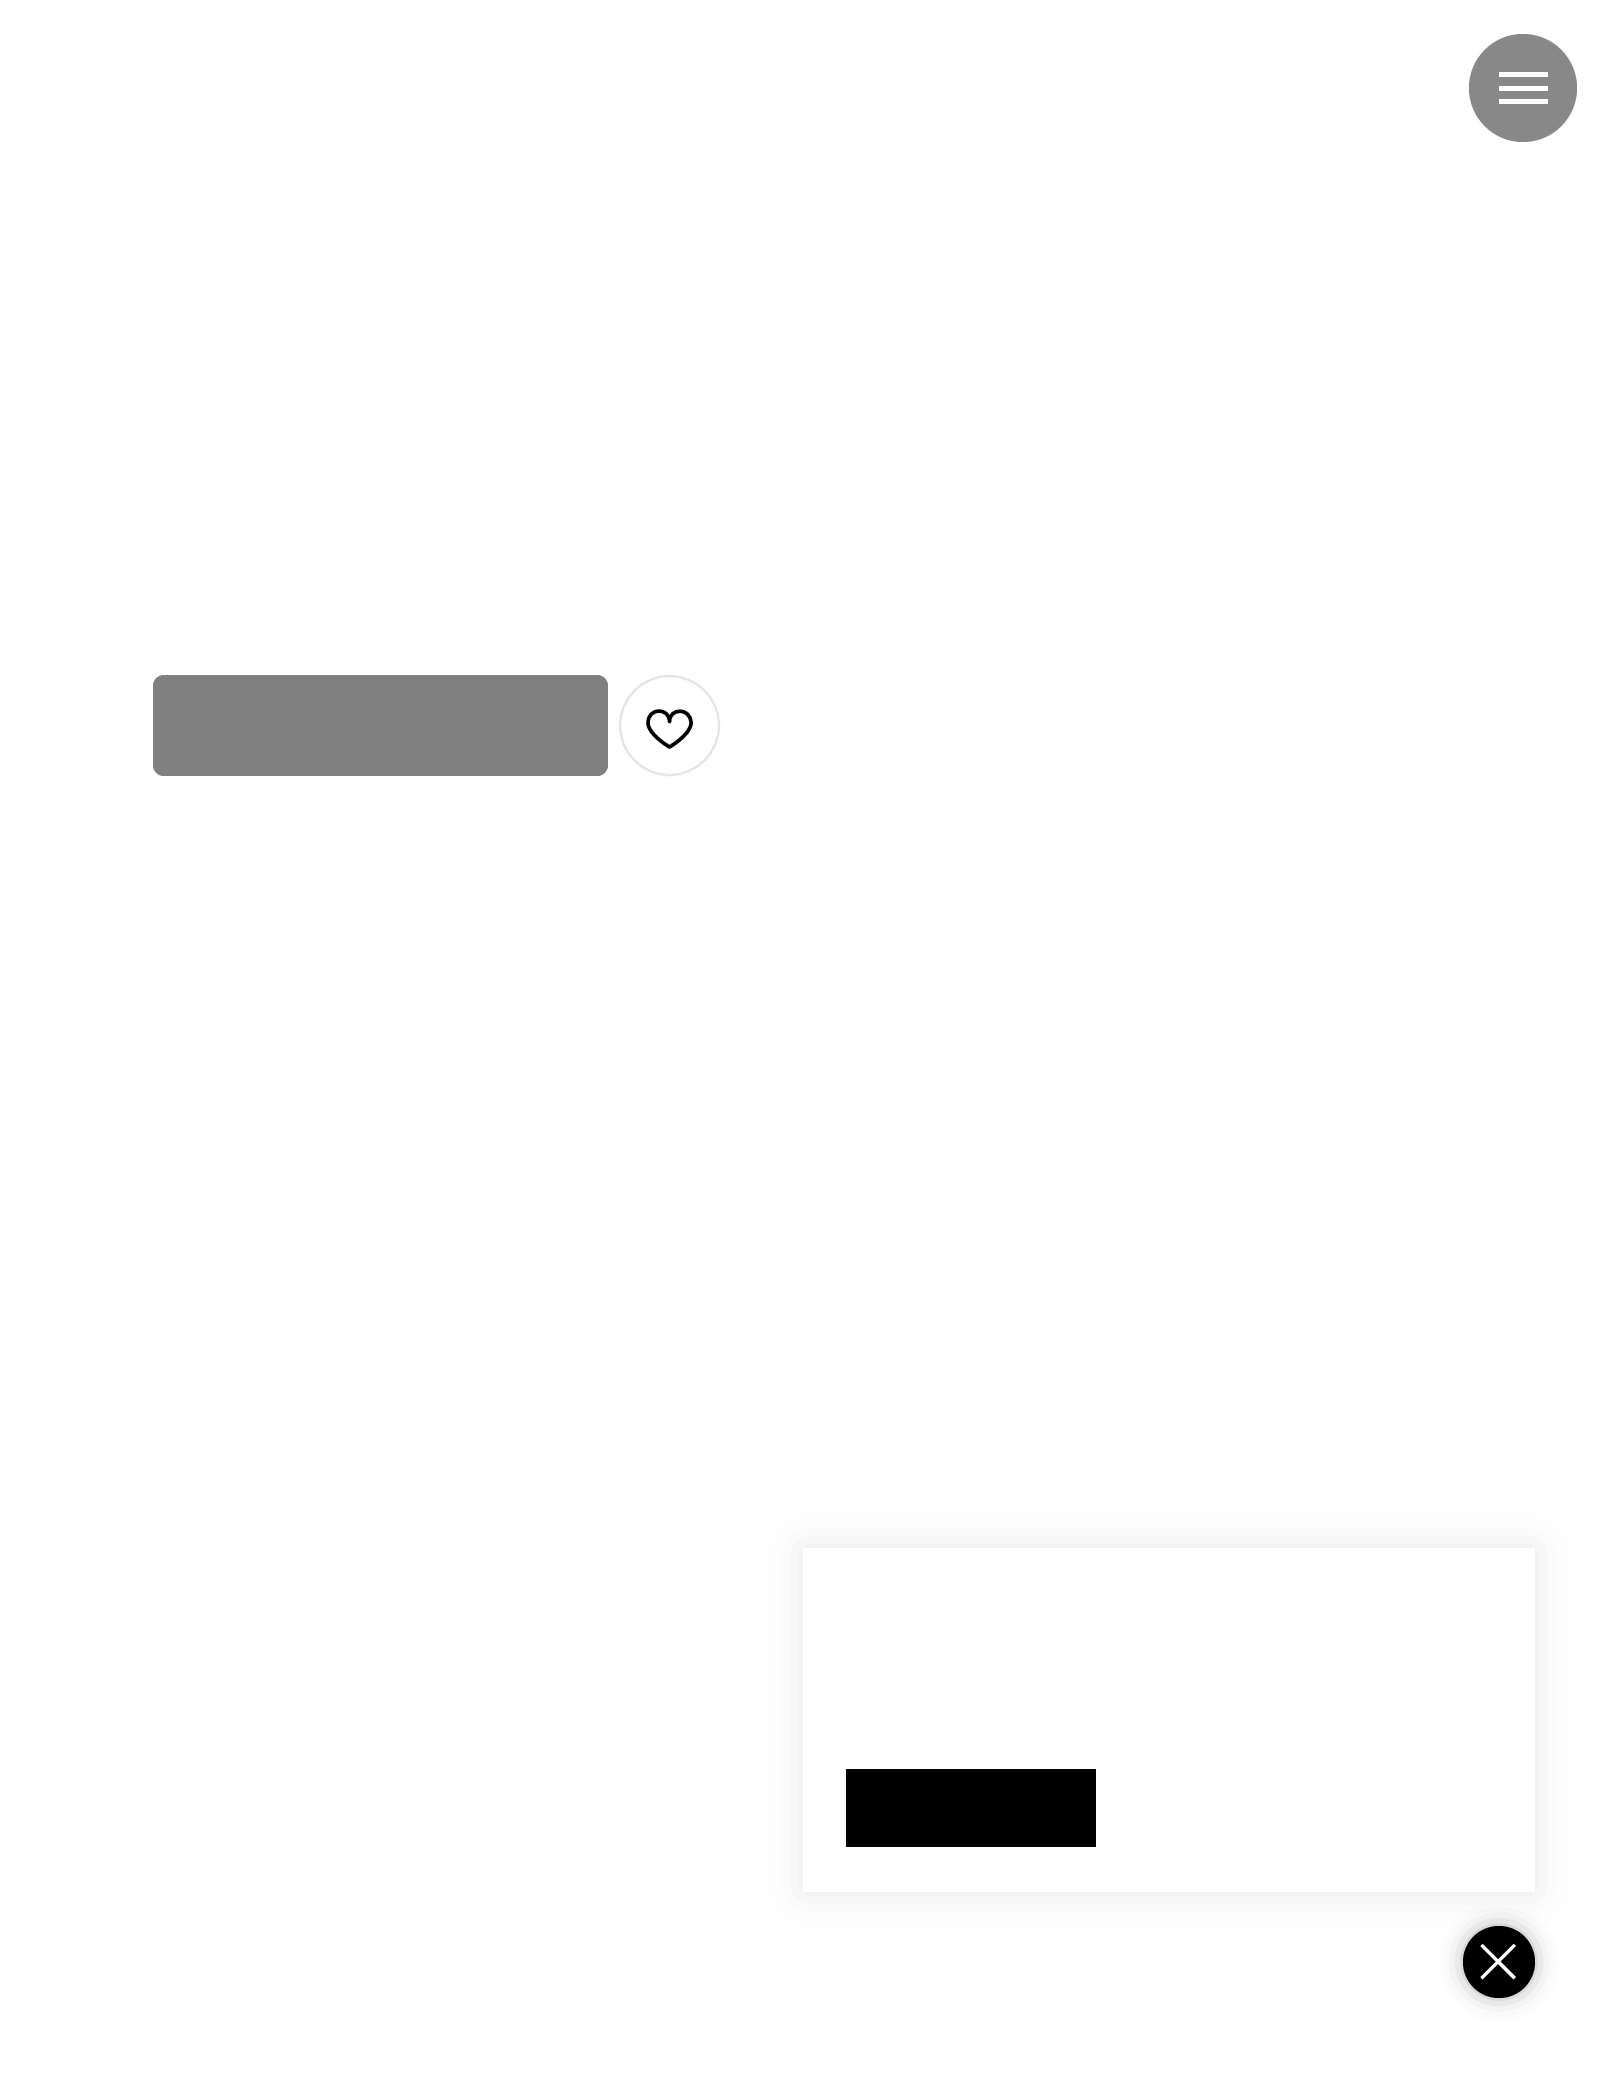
%!PS
<< /PageSize [1610 2073] /PageUsesTransparency true >> setpagedevice
/alpha { dup .setfillconstantalpha .setstrokeconstantalpha } def
/roundrect { 5 dict begin { /r /h /w /y /x } { exch def } forall
  x r add y moveto x w add y 2 copy h add r arct x w add y h add x 1 index r arct
  x y h add x y r arct x y 2 copy exch w add exch r arct closepath end } def
/shadow { 12 dict begin { /a /b /q /h /w /y /x } { exch def } forall gsave /was 0 def
  9 -2 -9 { dup b mul 4 div /e exch def 1 sub .425 mul 2.718 exch exp 1 add a .99 .min exch div /now exch def
    1 1 now sub 1 was sub div sub alpha /was now def
    w h .min e 2 mul add 0 gt { x e sub y e sub w e 2 mul add h e 2 mul add
      q e add b .6 mul add w h .min 2 div e add .min 0 .max roundrect fill } if } for grestore end } def
0 .pushpdf14devicefilter
0 2073 translate 1 -1 scale
4 setmiterlimit
1 setgray
0 0 1610 2073 rectfill
0.533 setgray
newpath 1523 88 54 0 360 arc closepath fill
1 setgray
1499 72 49 5 rectfill
1499 86 49 5 rectfill
1499 99 49 5 rectfill
0.502 setgray
153 675 455 101 11 roundrect fill
0.894 setgray
2 setlinewidth
newpath 669.5 725.5 49.5 0 360 arc closepath stroke
0 setgray
3.4 setlinewidth
1 setlinejoin
newpath 691 723 moveto 691 734.5 669.5 747 669.5 747 curveto 669.5 747 648 734.5 648 723 curveto 648 707 669.5 707.5 669.5 721.5 curveto 669.5 707.5 691 707.5 691 723 curveto closepath stroke
803 1548 732 344 0 17 0.1 shadow
1 setgray
803 1548 732 344 rectfill
0 setgray
846 1769 250 78 rectfill
1463 1926 72 72 36 11 0.3 shadow
newpath 1499 1962 36 0 360 arc closepath fill
1 setgray
newpath 1480.5 1946 moveto 1482.5 1944 lineto 1516 1977 lineto 1513.5 1979.5 lineto closepath eofill
newpath 1513.5 1944 moveto 1516 1946 lineto 1482.5 1979.5 lineto 1480.5 1977 lineto closepath eofill
.poppdf14devicefilter showpage
